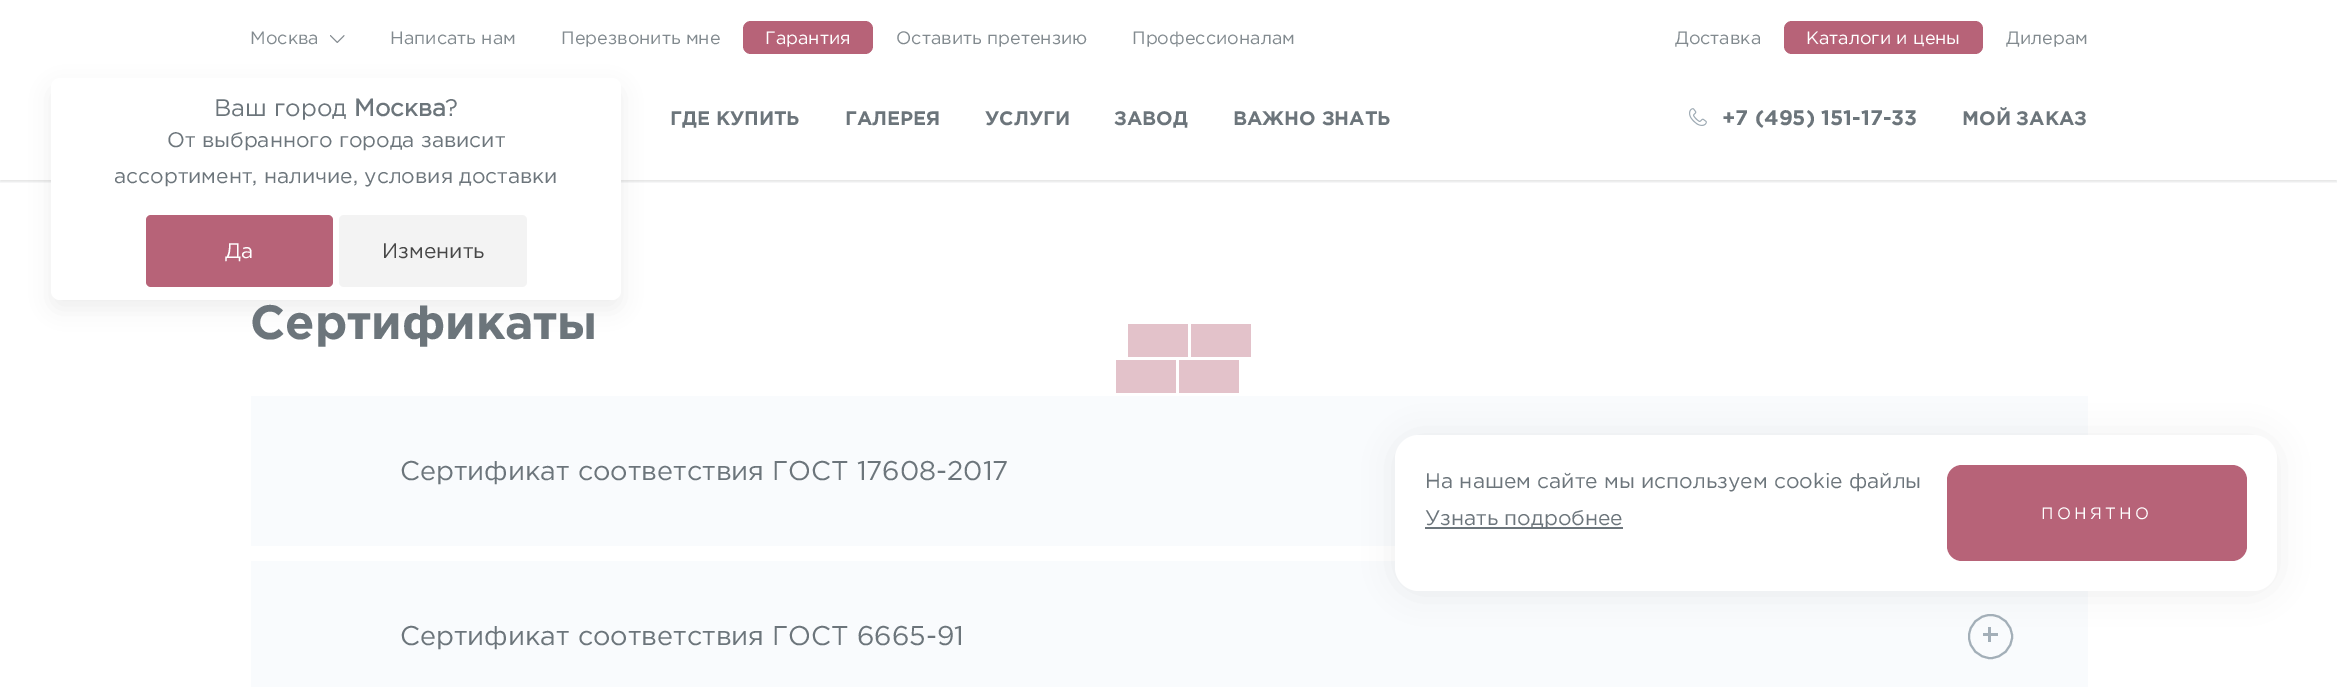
%!PS
<< /PageSize [2337 687] /PageUsesTransparency true >> setpagedevice
/alpha { dup .setfillconstantalpha .setstrokeconstantalpha } def
/roundrect { 5 dict begin { /r /h /w /y /x } { exch def } forall
  x r add y moveto x w add y 2 copy h add r arct x w add y h add x 1 index r arct
  x y h add x y r arct x y 2 copy exch w add exch r arct closepath end } def
/shadow { 12 dict begin { /a /b /q /h /w /y /x } { exch def } forall gsave /was 0 def
  9 -2 -9 { dup b mul 4 div /e exch def 1 sub .425 mul 2.718 exch exp 1 add a .99 .min exch div /now exch def
    1 1 now sub 1 was sub div sub alpha /was now def
    w h .min e 2 mul add 0 gt { x e sub y e sub w e 2 mul add h e 2 mul add
      q e add b .6 mul add w h .min 2 div e add .min 0 .max roundrect fill } if } for grestore end } def
/picture { 5 dict begin { /h /w /y /x /name } { exch def } forall
  gsave x y translate w h scale
  w h 8 [w 0 0 h 0 0] name (r) file false 3 colorimage grestore end } def
0 .pushpdf14devicefilter
0 687 translate 1 -1 scale
4 setmiterlimit
1 setgray
0 0 2337 687 rectfill
/Gotham-Regular [18 0 0 -18 0 0] selectfont
0.51 0.541 0.561 setrgbcolor
250 44 moveto (Москва) show
(img1.rgb) 330 35 15 8 picture
390 44 moveto (Написать нам) show
561 44 moveto (Перезвонить мне) show
0.718 0.388 0.471 setrgbcolor
743 21 130 33 8 roundrect fill
1 setgray
765 44 moveto (Гарантия) show
0.51 0.541 0.561 setrgbcolor
896 44 moveto (Оставить претензию) show
1132 44 moveto (Профессионалам) show
1675 44 moveto (Доставка) show
0.718 0.388 0.471 setrgbcolor
1784 21 199 33 8 roundrect fill
1 setgray
1806 44 moveto (Каталоги и цены) show
0.51 0.541 0.561 setrgbcolor
2006 44 moveto (Дилерам) show
gsave
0 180 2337 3 rectclip
0.424 0.459 0.482 setrgbcolor
0 56 2337 126 0 1 0.18 shadow
grestore
/Gotham-Bold [19.5 0 0 -19.5 0 0] selectfont
0.424 0.459 0.482 setrgbcolor
670 125 moveto (ГДЕ КУПИТЬ) show
845 125 moveto (ГАЛЕРЕЯ) show
985 125 moveto (УСЛУГИ) show
1114 125 moveto (ЗАВОД) show
1233 125 moveto (ВАЖНО ЗНАТЬ) show
(img2.rgb) 1689 108 18 18 picture
/Gotham-Bold [21 0 0 -21 0 0] selectfont
1722 125 moveto (+7 \(495\) 151-17-33) show
/Gotham-Bold [19.5 0 0 -19.5 0 0] selectfont
1962 125 moveto (МОЙ ЗАКАЗ) show
0.278 setgray
51 87 570 222 9 10 0.1 shadow
1 setgray
51 78 570 222 9 roundrect fill
/Gotham-Regular [24 0 0 -24 0 0] selectfont
0.424 0.459 0.482 setrgbcolor
214 116 moveto (Ваш город) show
/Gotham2-Bold [24 0 0 -24 0 0] selectfont
354 116 moveto (Москва) show
/Gotham-Regular [24 0 0 -24 0 0] selectfont
445 116 moveto (?) show
/Gotham-Regular [21 0 0 -21 0 0] selectfont
167 147 moveto (От выбранного города зависит) show
114 183 moveto (ассортимент, наличие, условия доставки) show
0.718 0.388 0.471 setrgbcolor
146 215 187 72 5 roundrect fill
1 setgray
225 258 moveto (Да) show
0.953 setgray
339 215 188 72 5 roundrect fill
0.278 setgray
382 258 moveto (Изменить) show
/Gotham-Bold [48 0 0 -48 0 0] selectfont
0.424 0.459 0.482 setrgbcolor
250 339 moveto (Сертификаты) show
0.976 0.984 0.992 setrgbcolor
251 396 1837 150 rectfill
/Gotham-Regular [27 0 0 -27 0 0] selectfont
0.424 0.459 0.482 setrgbcolor
400 480 moveto (Сертификат соответствия ГОСТ 17608-2017) show
0.976 0.984 0.992 setrgbcolor
251 561 1837 126 rectfill
0.424 0.459 0.482 setrgbcolor
400 645 moveto (Сертификат соответствия ГОСТ 6665-91) show
0.639 0.686 0.722 setrgbcolor
2 setlinewidth
newpath 1990.5 636.5 21.5 0 360 arc closepath stroke
1988 627 3 15 rectfill
1983 633 15 3 rectfill
0.89 0.761 0.792 setrgbcolor
1128 324 60 33 rectfill
1191 324 60 33 rectfill
1116 360 60 33 rectfill
1179 360 60 33 rectfill
0.278 setgray
1395 437 882 156 24 15 0.1 shadow
1 setgray
1395 435 882 156 24 roundrect fill
/Gotham-Regular [21 0 0 -21 0 0] selectfont
0.424 0.459 0.482 setrgbcolor
1425 488 moveto (На нашем сайте мы используем cookie файлы) show
1425 527 198 2 rectfill
1425 525 moveto (Узнать подробнее) show
0.718 0.388 0.471 setrgbcolor
1947 465 300 96 15 roundrect fill
/Gotham-Regular [16.5 0 0 -16.5 0 0] selectfont
1 setgray
2041 519 moveto 3.25 0 (ПОНЯТНО) ashow
.poppdf14devicefilter showpage
